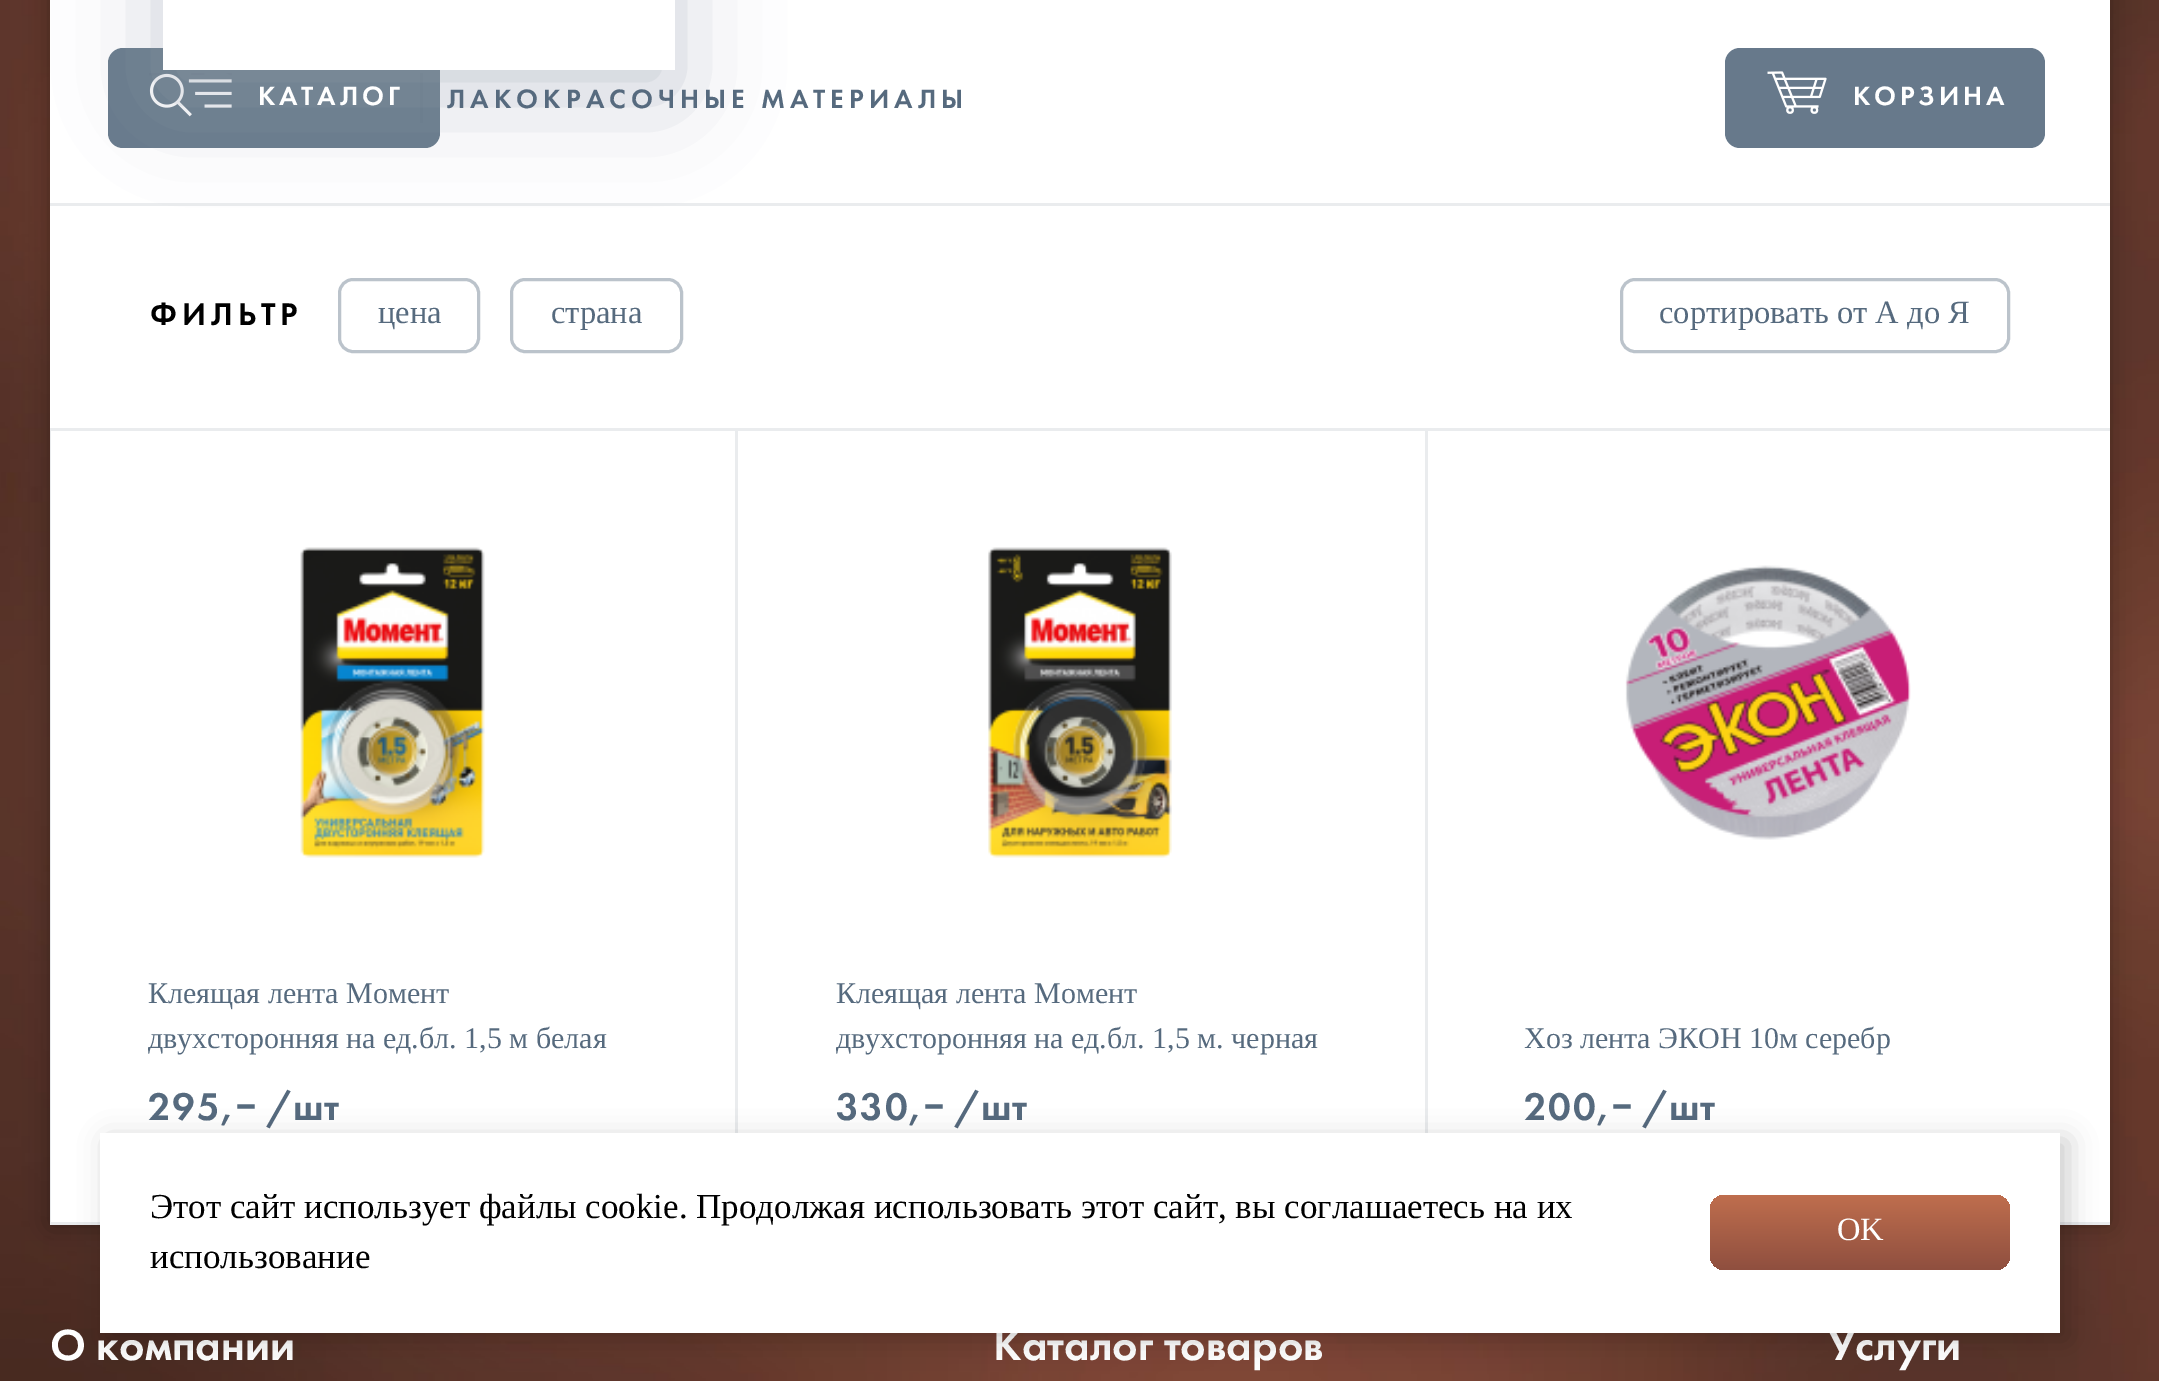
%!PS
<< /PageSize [2159 1381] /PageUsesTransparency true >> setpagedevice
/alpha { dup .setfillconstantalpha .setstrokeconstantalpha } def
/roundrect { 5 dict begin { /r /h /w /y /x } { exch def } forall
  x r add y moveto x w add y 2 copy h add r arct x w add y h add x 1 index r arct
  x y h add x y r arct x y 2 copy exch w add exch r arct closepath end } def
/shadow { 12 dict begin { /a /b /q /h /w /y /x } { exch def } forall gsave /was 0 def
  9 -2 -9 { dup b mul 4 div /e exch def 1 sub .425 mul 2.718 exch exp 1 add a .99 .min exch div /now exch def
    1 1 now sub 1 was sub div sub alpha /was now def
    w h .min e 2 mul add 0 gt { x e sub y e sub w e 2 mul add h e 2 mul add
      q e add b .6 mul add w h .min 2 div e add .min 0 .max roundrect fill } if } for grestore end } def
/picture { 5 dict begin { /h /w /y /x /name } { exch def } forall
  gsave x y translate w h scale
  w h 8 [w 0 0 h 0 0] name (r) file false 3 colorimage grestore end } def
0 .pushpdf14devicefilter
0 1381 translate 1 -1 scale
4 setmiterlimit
1 setgray
0 0 2159 1381 rectfill
(img1.rgb) 0 0 2159 1381 picture
0 setgray
50 -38 2060 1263 0 12.5 0.3 shadow
1 setgray
50 0 2060 1222 rectfill
0.918 0.925 0.933 setrgbcolor
420 73 3 50 rectfill
0.9 alpha
0.337 0.416 0.494 setrgbcolor
108 48 332 100 15 roundrect fill
1 alpha
(img2.rgb) 149 73 83 44 picture
0.918 0.925 0.933 setrgbcolor
50 203 2060 3 rectfill
0.584 0.624 0.671 setrgbcolor
163 -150 512 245 0 50 0.5 shadow
1 setgray
163 0 512 70 rectfill
/FuturaPT-Medium [27.5 0 0 -27.5 0 0] selectfont
258 105 moveto 3.75 0 (КАТАЛОГ) ashow
0.337 0.416 0.494 setrgbcolor
447 108 moveto 5 0 (ЛАКОКРАСОЧНЫЕ МАТЕРИАЛЫ) ashow
0.404 0.475 0.545 setrgbcolor
1725 48 320 100 15 roundrect fill
(img3.rgb) 1767 71 60 43 picture
1 setgray
1853 105 moveto 3.75 0 (КОРЗИНА) ashow
/FuturaPT-Medium [32.5 0 0 -32.5 0 0] selectfont
0 setgray
150 325 moveto 5 0 (ФИЛЬТР) ashow
0.733 0.765 0.796 setrgbcolor
3 setlinewidth
339.5 279.5 139 72 13.5 roundrect stroke
/LiberationSerif-Regular [32.5 0 0 -32.5 0 0] selectfont
0.337 0.416 0.494 setrgbcolor
378 323 moveto (цена) show
0.733 0.765 0.796 setrgbcolor
511.5 279.5 170 72 13.5 roundrect stroke
0.337 0.416 0.494 setrgbcolor
551 323 moveto (страна) show
0.733 0.765 0.796 setrgbcolor
1621.5 279.5 387 72 13.5 roundrect stroke
0.337 0.416 0.494 setrgbcolor
1659 323 moveto (сортировать от А до Я) show
0.918 0.925 0.933 setrgbcolor
50 428 2060 3 rectfill
newpath 50 1222 moveto 50 1225 lineto 738 1225 lineto 738 430 lineto 735 430 lineto 735 1222 lineto closepath fill
50 428 1 795 rectfill
(img4.rgb) 300 547 185 311 picture
/LiberationSerif-Regular [30 0 0 -30 0 0] selectfont
0.337 0.416 0.494 setrgbcolor
148 1003 moveto (Клеящая лента Момент) show
gsave
148 965 487 95 rectclip
148 1048 moveto (двухсторонняя на ед.бл. 1,5 м белая) show
grestore
/FuturaPT-Medium [40 0 0 -40 0 0] selectfont
148 1120 moveto 1.75 0 (295,−) ashow
267 1120 moveto (/шт) show
0.918 0.925 0.933 setrgbcolor
newpath 738 1222 moveto 738 1225 lineto 1428 1225 lineto 1428 430 lineto 1425 430 lineto 1425 1222 lineto closepath fill
(img5.rgb) 988 547 184 311 picture
/LiberationSerif-Regular [30 0 0 -30 0 0] selectfont
0.337 0.416 0.494 setrgbcolor
836 1003 moveto (Клеящая лента Момент) show
836 1048 moveto (двухсторонняя на ед.бл. 1,5 м. черная) show
/FuturaPT-Medium [40 0 0 -40 0 0] selectfont
836 1120 moveto 1.75 0 (330,−) ashow
955 1120 moveto (/шт) show
gsave
50 428 2060 797 rectclip
0.918 0.925 0.933 setrgbcolor
newpath 1428 1222 moveto 1428 1225 lineto 2115 1225 lineto 2115 430 lineto 2112 430 lineto 2112 1222 lineto closepath fill
grestore
(img6.rgb) 1625 565 286 275 picture
/LiberationSerif-Regular [30 0 0 -30 0 0] selectfont
1524 1048 moveto (Хоз лента ЭКОН 10м серебр) show
/FuturaPT-Medium [40 0 0 -40 0 0] selectfont
1524 1120 moveto 1.75 0 (200,−) ashow
1643 1120 moveto (/шт) show
/FuturaPT-Medium [45 0 0 -45 0 0] selectfont
1 setgray
50 1360 moveto (О компании) show
993 1360 moveto (Каталог товаров) show
1828 1360 moveto (Услуги) show
0 setgray
108 1140 1960 200 0 14 0.2 shadow
1 setgray
100 1133 1960 200 rectfill
/LiberationSerif-Regular [35 0 0 -35 0 0] selectfont
0 setgray
150 1218 moveto (Этот сайт использует файлы cookie. Продолжая использовать этот сайт, вы соглашаетесь на их) show
150 1268 moveto (использование) show
gsave 1710 1195 300 75 15 roundrect clip newpath
<< /ShadingType 2 /ColorSpace /DeviceRGB /Coords [1860 1195 1860 1270] /Extend [true true] /Function << /FunctionType 2 /Domain [0 1] /C0 [0.749 0.431 0.306] /C1 [0.561 0.31 0.247] /N 1 >> >> shfill grestore
/LiberationSerif-Regular [32.5 0 0 -32.5 0 0] selectfont
1 setgray
1837 1240 moveto (OK) show
.poppdf14devicefilter showpage
